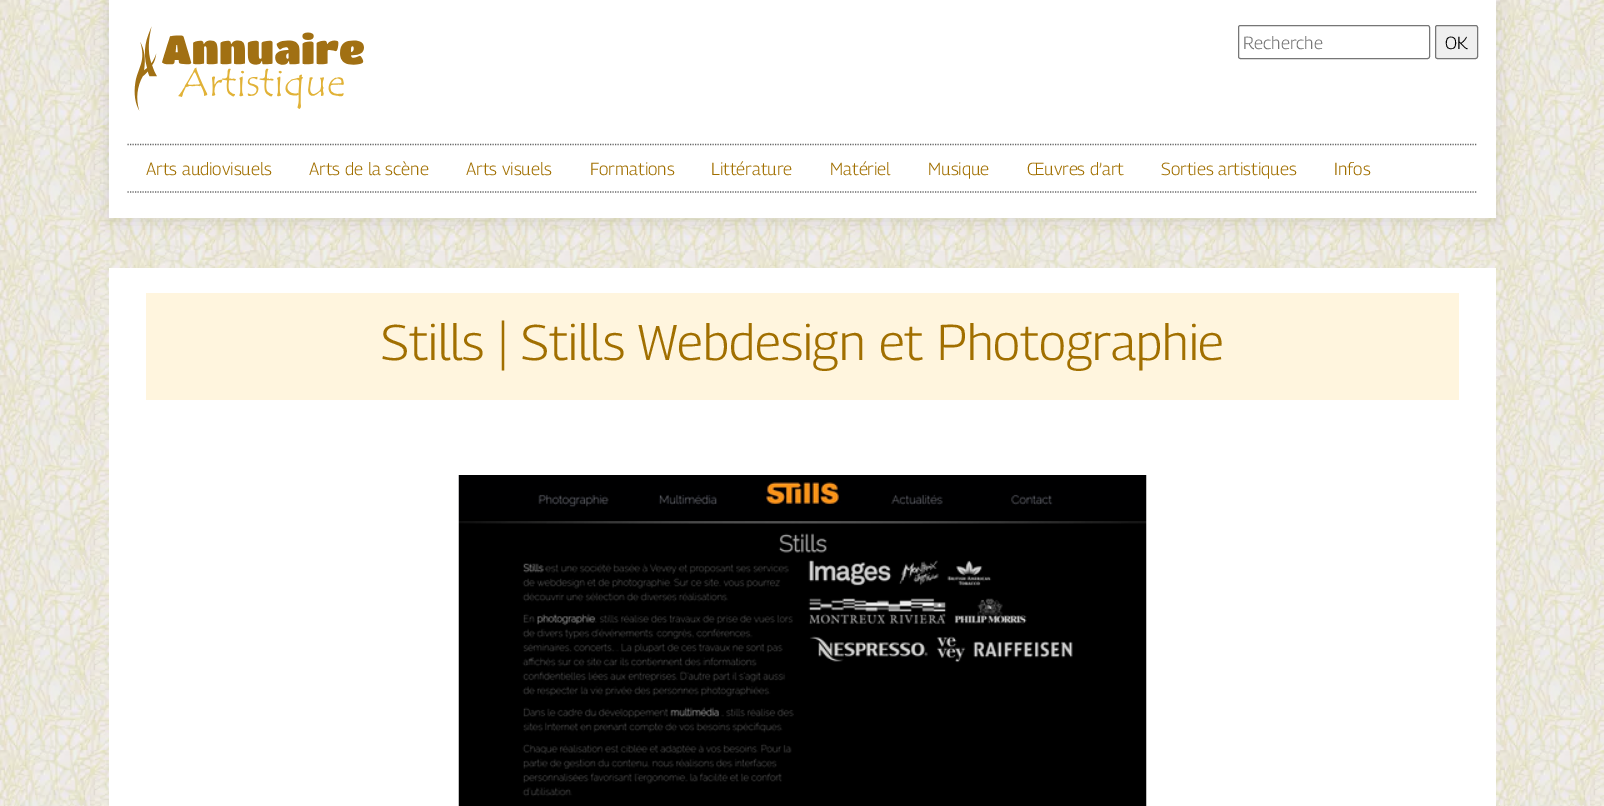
%!PS
<< /PageSize [1604 806] /PageUsesTransparency true >> setpagedevice
/alpha { dup .setfillconstantalpha .setstrokeconstantalpha } def
/roundrect { 5 dict begin { /r /h /w /y /x } { exch def } forall
  x r add y moveto x w add y 2 copy h add r arct x w add y h add x 1 index r arct
  x y h add x y r arct x y 2 copy exch w add exch r arct closepath end } def
/shadow { 12 dict begin { /a /b /q /h /w /y /x } { exch def } forall gsave /was 0 def
  9 -2 -9 { dup b mul 4 div /e exch def 1 sub .425 mul 2.718 exch exp 1 add a .99 .min exch div /now exch def
    1 1 now sub 1 was sub div sub alpha /was now def
    w h .min e 2 mul add 0 gt { x e sub y e sub w e 2 mul add h e 2 mul add
      q e add b .6 mul add w h .min 2 div e add .min 0 .max roundrect fill } if } for grestore end } def
/picture { 5 dict begin { /h /w /y /x /name } { exch def } forall
  gsave x y translate w h scale
  w h 8 [w 0 0 h 0 0] name (r) file false 3 colorimage grestore end } def
0 .pushpdf14devicefilter
0 806 translate 1 -1 scale
4 setmiterlimit
1 setgray
0 0 1604 806 rectfill
(img1.rgb) 0 0 1604 806 picture
0 setgray
109 3 1387 217 0 8 0.1 shadow
1 setgray
109 0 1387 218 rectfill
(img2.rgb) 134 26 230 85 picture
0.463 setgray
1238.5 25.5 191 33 2 roundrect stroke
/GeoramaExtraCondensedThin-Thin [17.5 0 0 -17.5 0 0] selectfont
0.459 setgray
1243 49 moveto (Recherche) show
0.937 setgray
1435.5 25.5 42 33 2 roundrect gsave fill grestore
0.463 setgray
stroke
0 setgray
1445 49 moveto (OK) show
0.4 setgray
1.2 setlinewidth
[1.25 1.25] 0 setdash
newpath 127.5 144.5 moveto 1477.5 144.5 lineto stroke
newpath 127.5 192 moveto 1477.5 192 lineto stroke
0.631 0.435 0 setrgbcolor
146 175 moveto (Arts audiovisuels) show
309 175 moveto (Arts de la scène) show
466 175 moveto (Arts visuels) show
590 175 moveto (Formations) show
711 175 moveto (Littérature) show
830 175 moveto (Matériel) show
928 175 moveto (Musique) show
1027 175 moveto (Œuvres d’art) show
1161 175 moveto (Sorties artistiques) show
1334 175 moveto (Infos) show
1 setgray
109 268 1387 538 rectfill
1 0.961 0.871 setrgbcolor
146 293 1313 107 rectfill
/GeoramaExtraCondensedThin-Thin [50 0 0 -50 0 0] selectfont
0.631 0.435 0 setrgbcolor
381 360 moveto (Stills | Stills Webdesign et Photographie) show
(img3.rgb) 458 475 689 331 picture
.poppdf14devicefilter showpage
